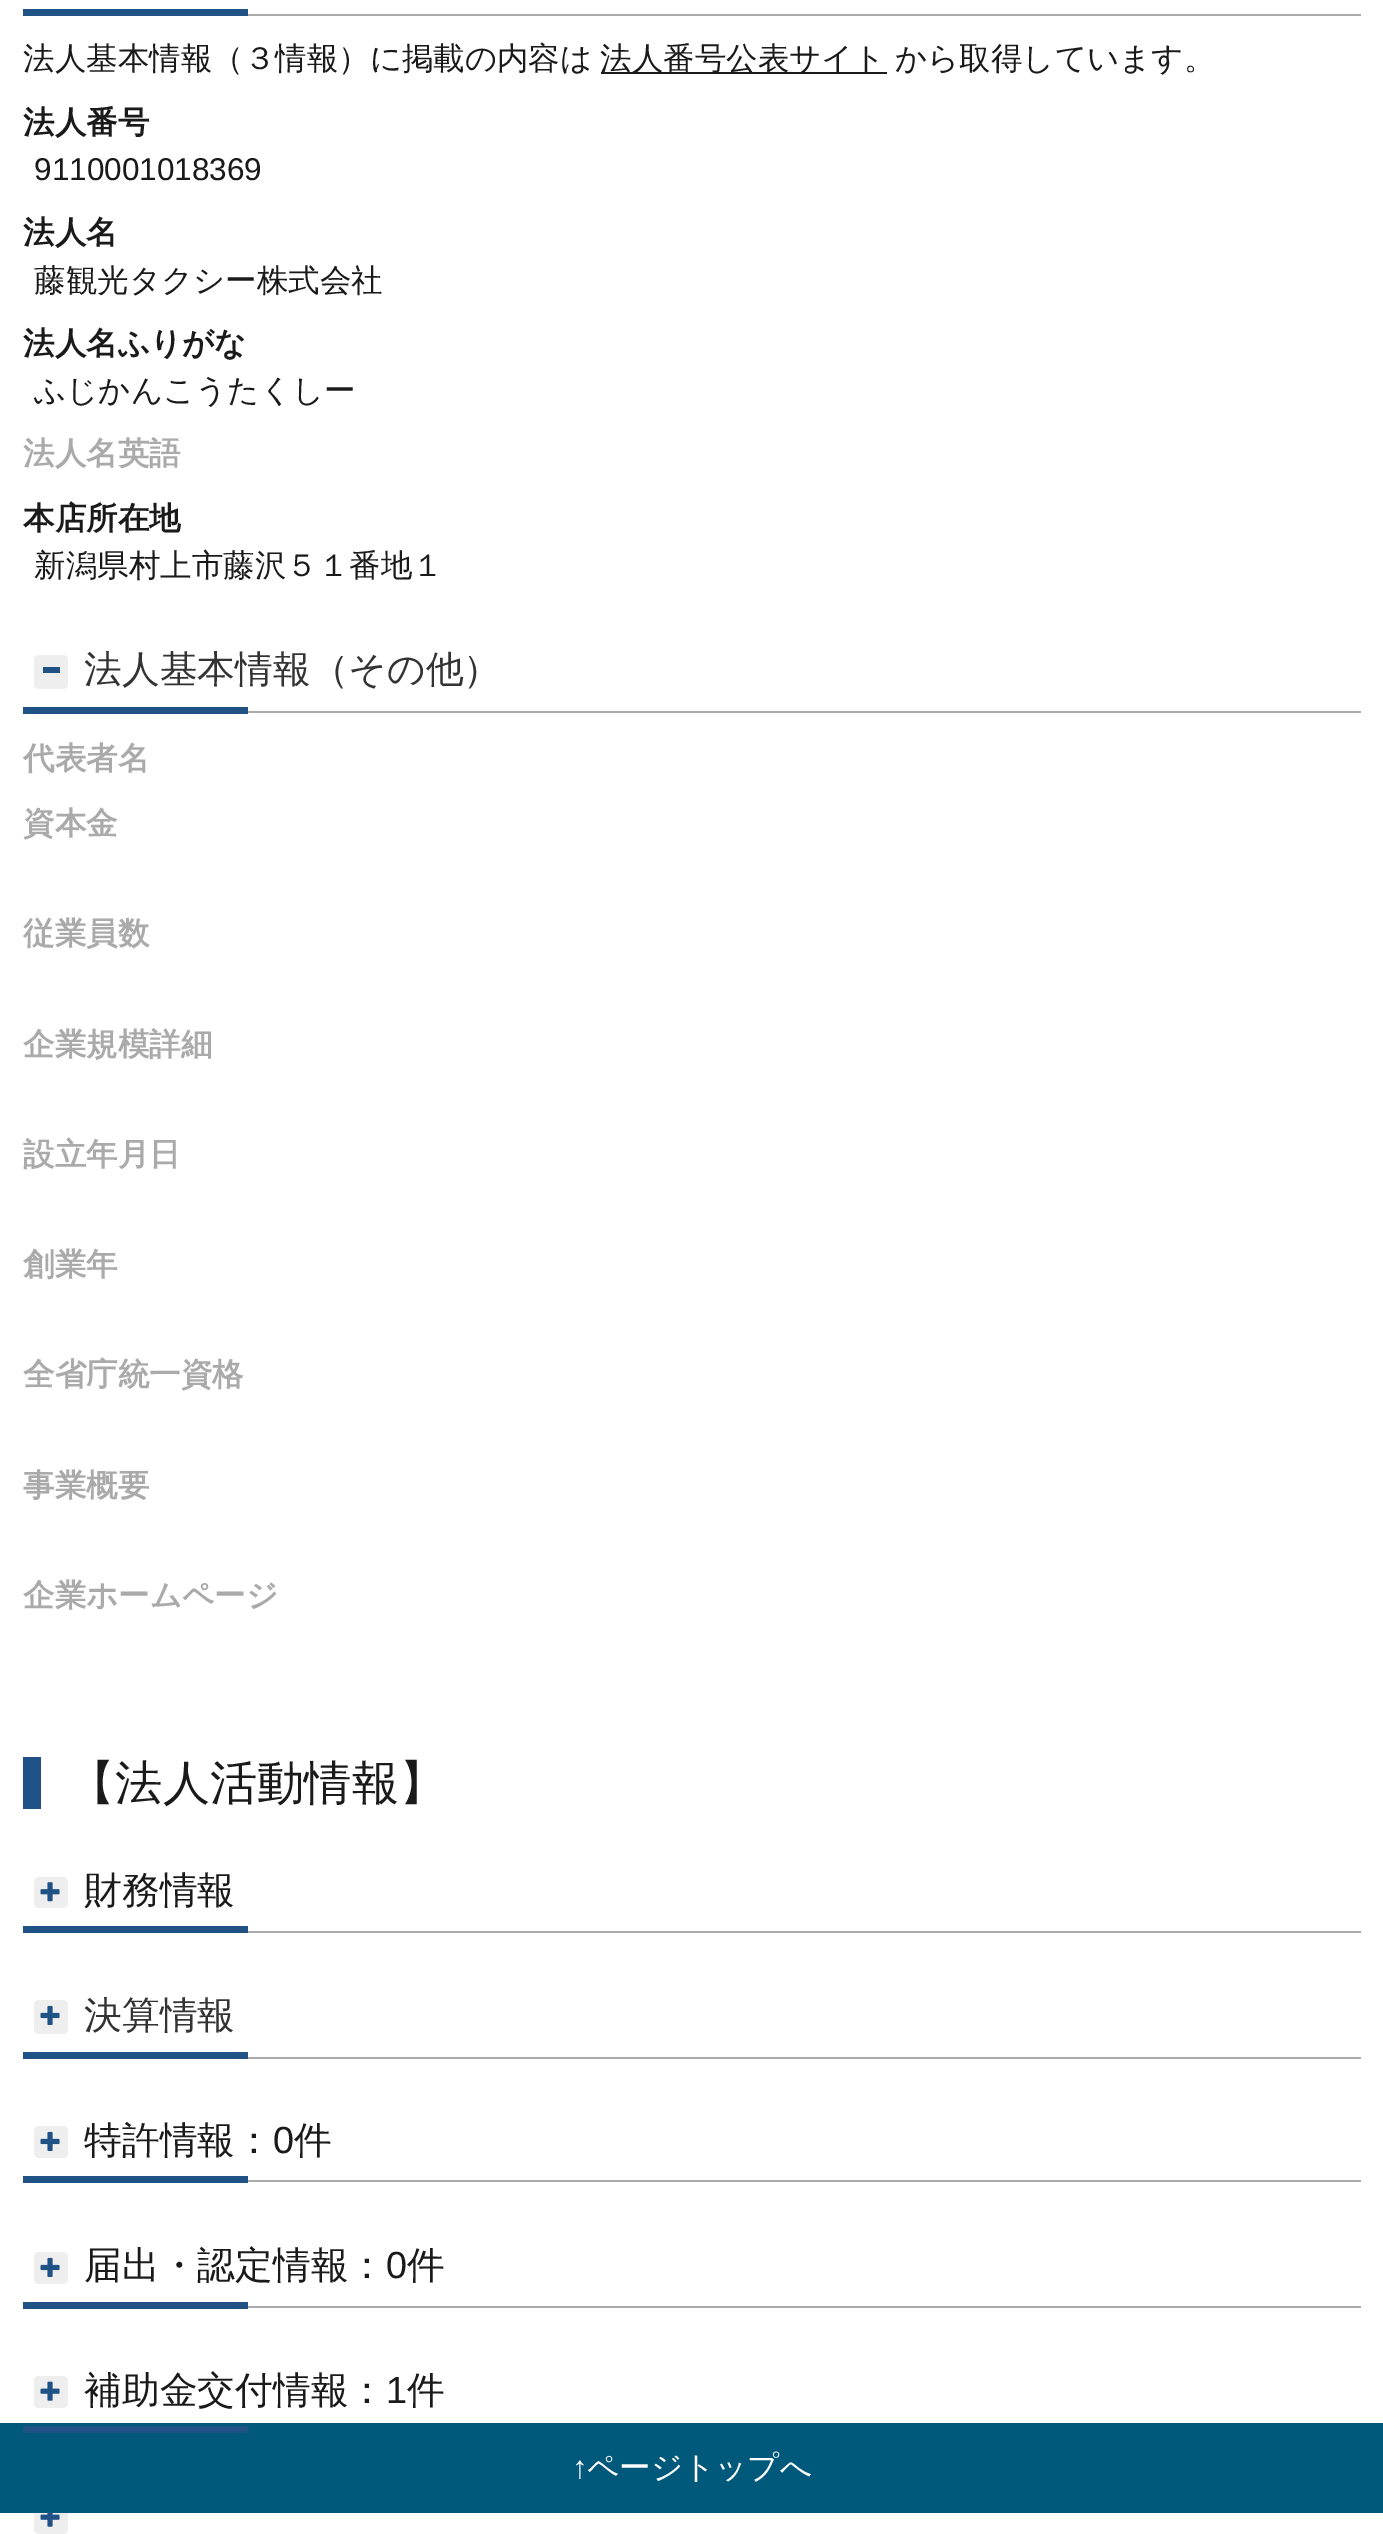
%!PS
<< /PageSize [1383 2534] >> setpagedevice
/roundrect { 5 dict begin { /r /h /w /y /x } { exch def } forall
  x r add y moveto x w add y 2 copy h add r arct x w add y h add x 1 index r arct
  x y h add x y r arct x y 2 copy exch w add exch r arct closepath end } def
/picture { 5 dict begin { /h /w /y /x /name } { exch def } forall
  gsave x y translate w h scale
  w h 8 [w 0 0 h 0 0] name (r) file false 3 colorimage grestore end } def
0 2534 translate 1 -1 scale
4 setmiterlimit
1 setgray
0 0 1383 2534 rectfill
0.667 setgray
248 14 1113 2 rectfill
0.125 0.322 0.525 setrgbcolor
23 9 225 7 rectfill
/WenQuanYiZenHei-Medium [31.5 0 0 -31.5 0 0] selectfont
0.102 setgray
23 69 moveto (法人基本情報（３情報）に掲載の内容は) show
601 72 286 2 rectfill
600 69 moveto (法人番号公表サイト) show
895 69 moveto (から取得しています。) show
/WenQuanYiZenHei-Bold [31.5 0 0 -31.5 0 0] selectfont
23 133 moveto (法人番号) show
/LiberationSans-Regular [31.5 0 0 -31.5 0 0] selectfont
34 180 moveto (9110001018369) show
/WenQuanYiZenHei-Bold [31.5 0 0 -31.5 0 0] selectfont
23 243 moveto (法人名) show
/WenQuanYiZenHei-Medium [31.5 0 0 -31.5 0 0] selectfont
34 291 moveto (藤観光タクシー株式会社) show
/WenQuanYiZenHei-Bold [31.5 0 0 -31.5 0 0] selectfont
23 354 moveto (法人名ふりがな) show
/WenQuanYiZenHei-Medium [31.5 0 0 -31.5 0 0] selectfont
34 401 moveto (ふじかんこうたくしー) show
/WenQuanYiZenHei-Bold [31.5 0 0 -31.5 0 0] selectfont
0.667 setgray
23 464 moveto (法人名英語) show
0.102 setgray
23 529 moveto (本店所在地) show
/WenQuanYiZenHei-Medium [31.5 0 0 -31.5 0 0] selectfont
34 576 moveto (新潟県村上市藤沢５１番地１) show
0.667 setgray
248 711 1113 2 rectfill
0.933 setgray
34 655 34 34 5 roundrect fill
0.125 0.322 0.525 setrgbcolor
43 667 17 6 rectfill
/WenQuanYiZenHei-Medium [37.75 0 0 -37.75 0 0] selectfont
0.2 setgray
84 682 moveto (法人基本情報（その他）) show
0.125 0.322 0.525 setrgbcolor
23 707 225 7 rectfill
/WenQuanYiZenHei-Bold [31.5 0 0 -31.5 0 0] selectfont
0.667 setgray
23 769 moveto (代表者名) show
23 834 moveto (資本金) show
23 944 moveto (従業員数) show
23 1055 moveto (企業規模詳細) show
23 1165 moveto (設立年月日) show
23 1275 moveto (創業年) show
23 1385 moveto (全省庁統一資格) show
23 1496 moveto (事業概要) show
23 1606 moveto (企業ホームページ) show
0.125 0.322 0.525 setrgbcolor
23 1757 18 52 rectfill
/WenQuanYiZenHei-Medium [47.25 0 0 -47.25 0 0] selectfont
0.102 setgray
68 1799 moveto (【法人活動情報】) show
0.667 setgray
248 1931 1113 2 rectfill
0.933 setgray
34 1877 34 31 5 roundrect fill
(img1.rgb) 40 1882 20 20 picture
/WenQuanYiZenHei-Medium [37.75 0 0 -37.75 0 0] selectfont
0.102 setgray
84 1903 moveto (財務情報) show
0.125 0.322 0.525 setrgbcolor
23 1926 225 7 rectfill
0.667 setgray
248 2057 1113 2 rectfill
0.933 setgray
34 2000 34 34 5 roundrect fill
(img2.rgb) 40 2005 20 20 picture
0.2 setgray
84 2028 moveto (決算情報) show
0.125 0.322 0.525 setrgbcolor
23 2052 225 7 rectfill
0.667 setgray
248 2180 1113 2 rectfill
0.933 setgray
34 2126 34 32 5 roundrect fill
(img2.rgb) 40 2131 20 20 picture
0.102 setgray
84 2153 moveto (特許情報：) show
/LiberationSans-Regular [37.75 0 0 -37.75 0 0] selectfont
273 2153 moveto (0) show
/WenQuanYiZenHei-Medium [37.75 0 0 -37.75 0 0] selectfont
294 2153 moveto (件) show
0.125 0.322 0.525 setrgbcolor
23 2176 225 7 rectfill
0.667 setgray
248 2306 1113 2 rectfill
0.933 setgray
34 2252 34 32 5 roundrect fill
(img2.rgb) 40 2257 20 20 picture
0.102 setgray
84 2278 moveto (届出・認定情報：) show
/LiberationSans-Regular [37.75 0 0 -37.75 0 0] selectfont
386 2278 moveto (0) show
/WenQuanYiZenHei-Medium [37.75 0 0 -37.75 0 0] selectfont
407 2278 moveto (件) show
0.125 0.322 0.525 setrgbcolor
23 2302 225 7 rectfill
0.933 setgray
34 2376 34 32 5 roundrect fill
(img3.rgb) 40 2381 20 20 picture
0.102 setgray
84 2403 moveto (補助金交付情報：) show
/LiberationSans-Regular [37.75 0 0 -37.75 0 0] selectfont
386 2403 moveto (1) show
/WenQuanYiZenHei-Medium [37.75 0 0 -37.75 0 0] selectfont
407 2403 moveto (件) show
0.933 setgray
34 2502 34 32 5 roundrect fill
0 0.349 0.482 setrgbcolor
0 2423 1383 90 rectfill
0.125 0.322 0.525 setrgbcolor
23 2426 225 7 rectfill
(img4.rgb) 40 2513 20 14 picture
/LiberationSans-Regular [31.5 0 0 -31.5 0 0] selectfont
1 setgray
572 2478 moveto (↑) show
/WenQuanYiZenHei-Medium [31.5 0 0 -31.5 0 0] selectfont
587 2478 moveto (ページトップへ) show
showpage
